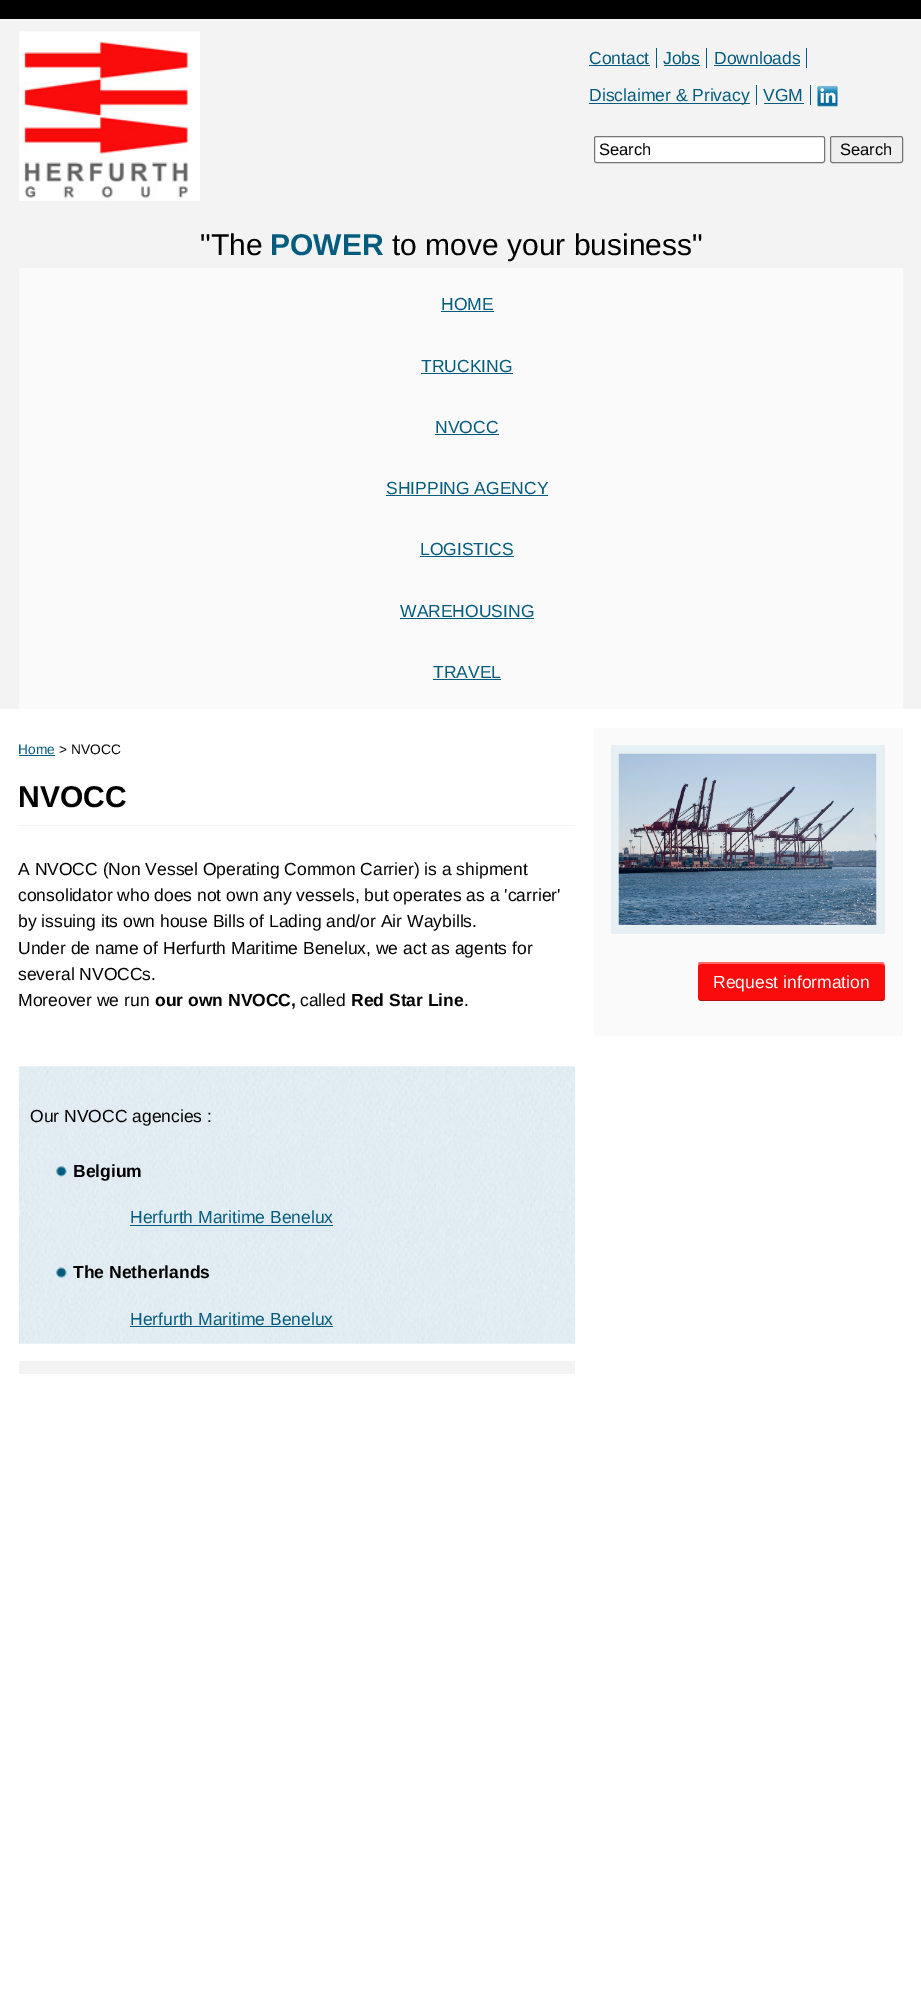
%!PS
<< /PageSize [921 1999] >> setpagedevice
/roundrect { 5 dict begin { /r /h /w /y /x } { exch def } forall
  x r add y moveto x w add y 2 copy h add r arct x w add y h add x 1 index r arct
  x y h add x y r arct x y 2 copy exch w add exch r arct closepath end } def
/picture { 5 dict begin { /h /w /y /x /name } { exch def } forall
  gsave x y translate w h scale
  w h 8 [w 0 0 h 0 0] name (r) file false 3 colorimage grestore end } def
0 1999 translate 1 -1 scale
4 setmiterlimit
1 setgray
0 0 921 1999 rectfill
0 setgray
0 0 921 19 rectfill
0.953 setgray
0 19 921 690 rectfill
(img1.rgb) 19 31 181 170 picture
/LiberationSans-Regular [17.5 0 0 -17.5 0 0] selectfont
0.012 0.357 0.494 setrgbcolor
589 64 moveto (Contact) show
656 48 1 20 rectfill
589 65 61 1 rectfill
663 64 moveto (Jobs) show
706 48 1 20 rectfill
664 65 36 1 rectfill
714 64 moveto (Downloads) show
806 48 1 20 rectfill
714 65 86 1 rectfill
589 103 161 1 rectfill
589 101 moveto (Disclaimer & Privacy) show
756 85 1 20 rectfill
763 101 moveto (VGM) show
810 85 1 20 rectfill
764 103 40 1 rectfill
(img2.rgb) 817 86 21 21 picture
1 setgray
594.5 136.5 230 26 2 roundrect gsave fill grestore
0.463 setgray
stroke
/LiberationSans-Regular [16.5 0 0 -16.5 0 0] selectfont
0 setgray
599 155 moveto (Search) show
0.937 setgray
830.5 136.5 72 26 2 roundrect gsave fill grestore
0.463 setgray
stroke
0 setgray
840 155 moveto (Search) show
/LiberationSans-Regular [30 0 0 -30 0 0] selectfont
200 255 moveto ("The) show
/LiberationSans-Bold [30 0 0 -30 0 0] selectfont
0.012 0.357 0.494 setrgbcolor
270 255 moveto (POWER) show
/LiberationSans-Regular [30 0 0 -30 0 0] selectfont
0 setgray
392 255 moveto (to move your business") show
0.98 setgray
19 268 884 441 rectfill
/LiberationSans-Regular [17.5 0 0 -17.5 0 0] selectfont
0.012 0.357 0.494 setrgbcolor
441 310 moveto (HOME) show
441 311 53 1 rectfill
421 372 moveto (TRUCKING) show
421 373 92 1 rectfill
435 433 moveto (NVOCC) show
435 434 64 1 rectfill
386 494 moveto (SHIPPING AGENCY) show
386 495 162 1 rectfill
420 555 moveto (LOGISTICS) show
420 556 94 1 rectfill
400 617 moveto (WAREHOUSING) show
400 618 134 1 rectfill
433 678 moveto (TRAVEL) show
433 679 68 1 rectfill
0.953 setgray
19 1361 556 13 rectfill
/LiberationSans-Regular [13.75 0 0 -13.75 0 0] selectfont
0.012 0.357 0.494 setrgbcolor
18 754 moveto (Home) show
19 755 36 1 rectfill
0 setgray
59 754 moveto (> NVOCC) show
0.953 setgray
19 825 556 1 rectfill
/LiberationSans-Bold [30 0 0 -30 0 0] selectfont
0 setgray
18 807 moveto (NVOCC) show
/LiberationSans-Regular [17.5 0 0 -17.5 0 0] selectfont
18 875 moveto (A NVOCC \(Non Vessel Operating Common Carrier\) is a shipment) show
18 901 moveto (consolidator who does not own any vessels, but operates as a 'carrier') show
18 927 moveto (by issuing its own house Bills of Lading and/or Air Waybills.) show
18 954 moveto (Under de name of Herfurth Maritime Benelux, we act as agents for) show
18 980 moveto (several NVOCCs.) show
18 1006 moveto (Moreover we run) show
/LiberationSans-Bold [17.5 0 0 -17.5 0 0] selectfont
155 1006 moveto (our own NVOCC,) show
/LiberationSans-Regular [17.5 0 0 -17.5 0 0] selectfont
300 1006 moveto (called) show
/LiberationSans-Bold [17.5 0 0 -17.5 0 0] selectfont
351 1006 moveto (Red Star Line) show
/LiberationSans-Regular [17.5 0 0 -17.5 0 0] selectfont
464 1006 moveto (.) show
(img3.rgb) 19 1066 556 278 picture
30 1122 moveto (Our NVOCC agencies :) show
(img4.rgb) 56 1166 11 11 picture
/LiberationSans-Bold [17.5 0 0 -17.5 0 0] selectfont
73 1177 moveto (Belgium) show
/LiberationSans-Regular [17.5 0 0 -17.5 0 0] selectfont
0.012 0.357 0.494 setrgbcolor
130 1223 moveto (Herfurth Maritime Benelux) show
130 1225 203 1 rectfill
(img5.rgb) 56 1267 11 11 picture
/LiberationSans-Bold [17.5 0 0 -17.5 0 0] selectfont
0 setgray
73 1278 moveto (The Netherlands) show
/LiberationSans-Regular [17.5 0 0 -17.5 0 0] selectfont
0.012 0.357 0.494 setrgbcolor
130 1325 moveto (Herfurth Maritime Benelux) show
130 1326 203 1 rectfill
0.98 setgray
594 728 309 308 rectfill
0.902 0.937 0.953 setrgbcolor
611 745 274 189 rectfill
(img6.rgb) 618 753 259 172 picture
0.98 0.047 0.047 setrgbcolor
698 963 187 38 4 roundrect fill
0.992 0.42 0.42 setrgbcolor
newpath 701 964 moveto 699 964 698 965 698 966 curveto 698 965 698 963 699 962 curveto 883 962 lineto 884 963 885 965 885 966 curveto 885 965 883 964 881 964 curveto closepath fill
0.706 0.051 0.063 setrgbcolor
newpath 881 1001 moveto 883 1001 885 1000 885 998 curveto 885 999 883 1000 881 1000 curveto 701 1000 lineto 699 1000 698 999 698 998 curveto 699 1000 lineto 701 1001 lineto closepath fill
1 setgray
713 988 moveto (Request information) show
showpage
